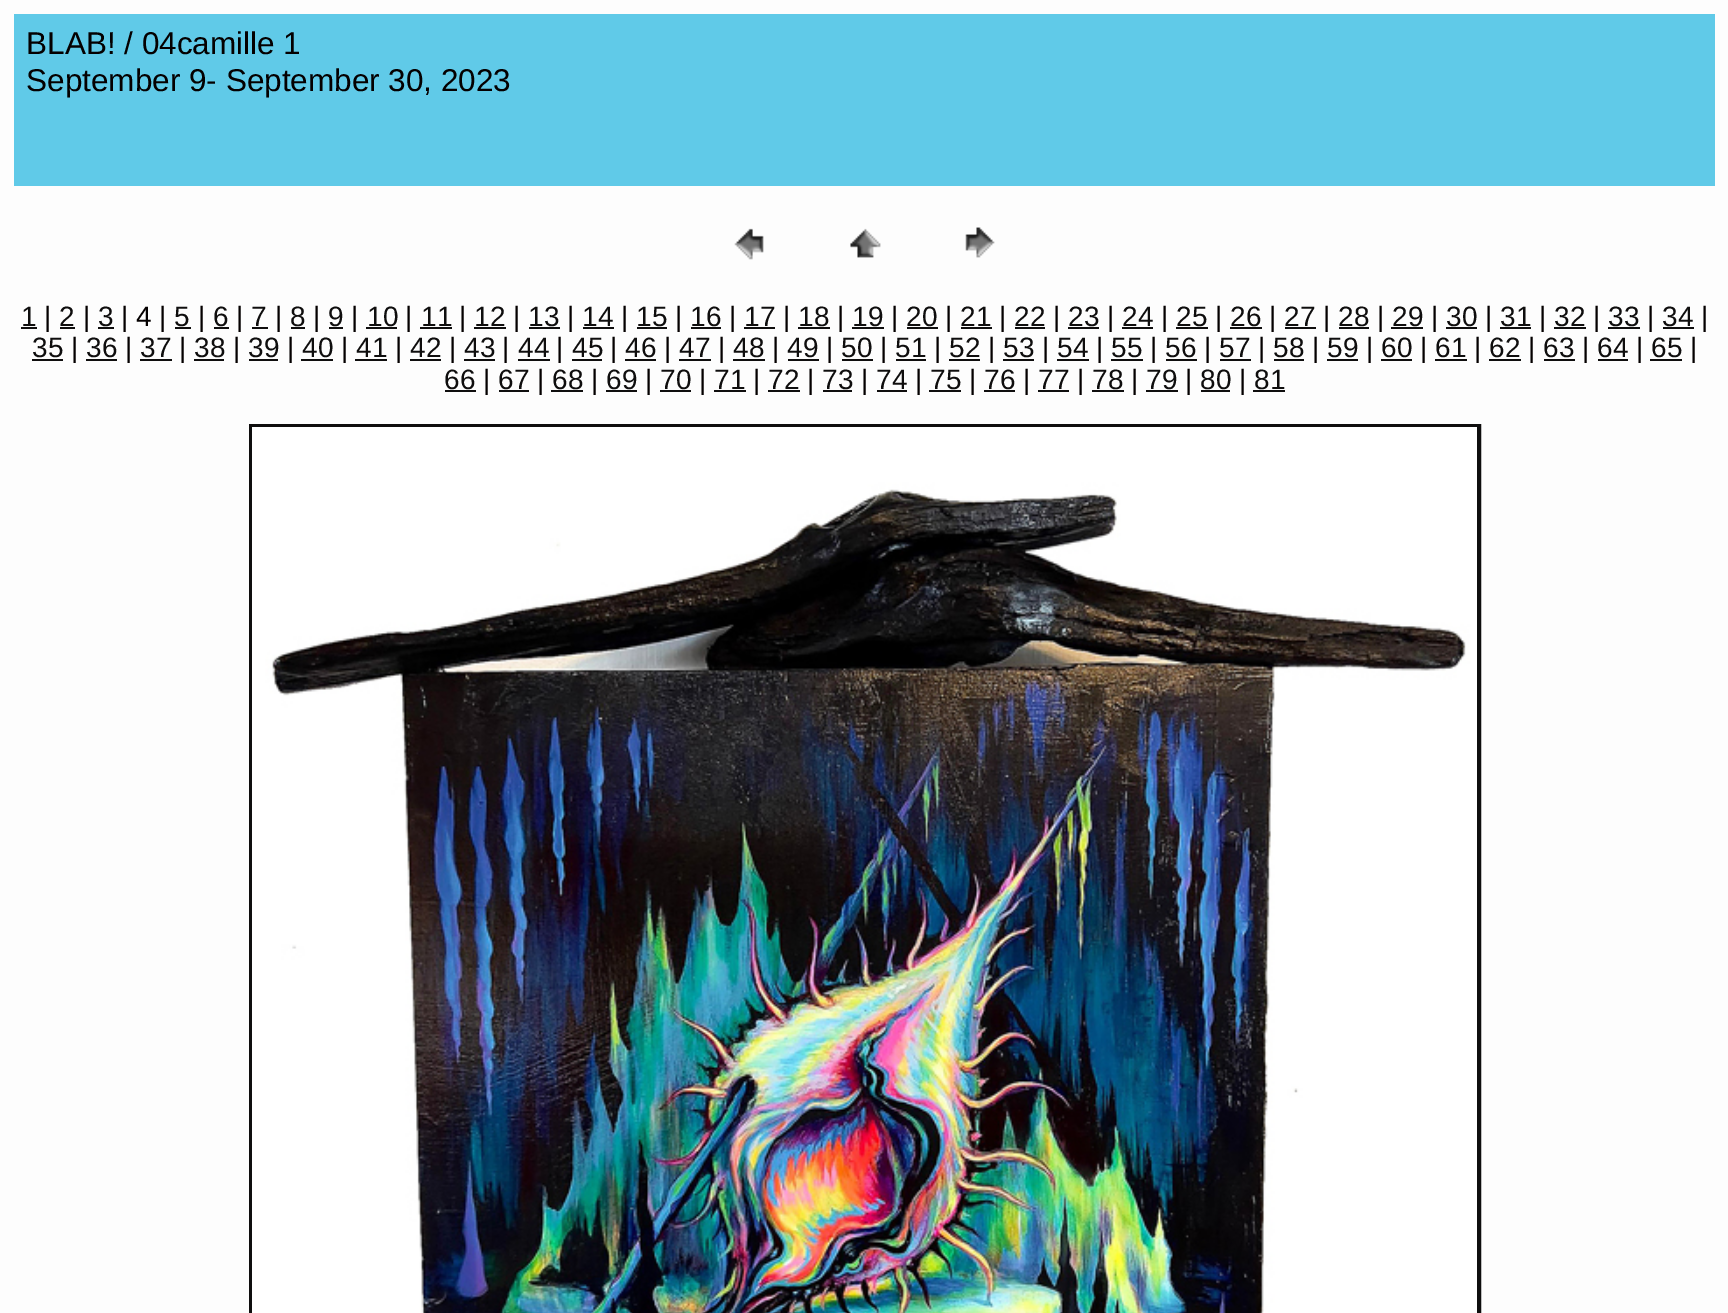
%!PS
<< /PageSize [1728 1313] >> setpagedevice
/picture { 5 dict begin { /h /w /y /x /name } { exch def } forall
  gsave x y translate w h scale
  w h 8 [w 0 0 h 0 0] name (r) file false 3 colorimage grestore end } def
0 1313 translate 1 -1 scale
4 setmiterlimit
0.992 setgray
0 0 1728 1313 rectfill
0.376 0.792 0.91 setrgbcolor
14 14 1701 172 rectfill
/LiberationSans-Regular [31.5 0 0 -31.5 0 0] selectfont
0.016 0 0 setrgbcolor
26 54 moveto (BLAB! / 04camille 1) show
26 91 moveto (September 9- September 30, 2023) show
(img1.rgb) 734 228 30 32 picture
(img2.rgb) 850 228 31 30 picture
(img3.rgb) 965 227 30 31 picture
/LiberationSans-Regular [28 0 0 -28 0 0] selectfont
0.059 0.055 0.055 setrgbcolor
21 326 moveto (1) show
21 327 16 2 rectfill
0.016 0 0 setrgbcolor
44 326 moveto (|) show
0.059 0.055 0.055 setrgbcolor
59 326 moveto (2) show
60 327 15 2 rectfill
0.016 0 0 setrgbcolor
83 326 moveto (|) show
0.059 0.055 0.055 setrgbcolor
98 326 moveto (3) show
98 327 16 2 rectfill
0.016 0 0 setrgbcolor
121 326 moveto (| 4 |) show
0.059 0.055 0.055 setrgbcolor
174 326 moveto (5) show
175 327 16 2 rectfill
0.016 0 0 setrgbcolor
198 326 moveto (|) show
0.059 0.055 0.055 setrgbcolor
213 326 moveto (6) show
214 327 15 2 rectfill
0.016 0 0 setrgbcolor
236 326 moveto (|) show
0.059 0.055 0.055 setrgbcolor
251 326 moveto (7) show
252 327 16 2 rectfill
0.016 0 0 setrgbcolor
275 326 moveto (|) show
0.059 0.055 0.055 setrgbcolor
290 326 moveto (8) show
291 327 14 2 rectfill
0.016 0 0 setrgbcolor
313 326 moveto (|) show
0.059 0.055 0.055 setrgbcolor
328 326 moveto (9) show
329 327 14 2 rectfill
0.016 0 0 setrgbcolor
351 326 moveto (|) show
0.059 0.055 0.055 setrgbcolor
367 326 moveto (10) show
366 327 31 2 rectfill
0.016 0 0 setrgbcolor
405 326 moveto (|) show
0.059 0.055 0.055 setrgbcolor
421 326 moveto (11) show
420 327 32 2 rectfill
0.016 0 0 setrgbcolor
459 326 moveto (|) show
0.059 0.055 0.055 setrgbcolor
474 326 moveto (12) show
474 327 32 2 rectfill
0.016 0 0 setrgbcolor
513 326 moveto (|) show
0.059 0.055 0.055 setrgbcolor
528 326 moveto (13) show
529 327 31 2 rectfill
0.016 0 0 setrgbcolor
567 326 moveto (|) show
0.059 0.055 0.055 setrgbcolor
582 326 moveto (14) show
583 327 31 2 rectfill
0.016 0 0 setrgbcolor
621 326 moveto (|) show
0.059 0.055 0.055 setrgbcolor
636 326 moveto (15) show
637 327 30 2 rectfill
0.016 0 0 setrgbcolor
675 326 moveto (|) show
0.059 0.055 0.055 setrgbcolor
690 326 moveto (16) show
691 327 30 2 rectfill
0.016 0 0 setrgbcolor
729 326 moveto (|) show
0.059 0.055 0.055 setrgbcolor
744 326 moveto (17) show
744 327 31 2 rectfill
0.016 0 0 setrgbcolor
783 326 moveto (|) show
0.059 0.055 0.055 setrgbcolor
798 326 moveto (18) show
798 327 32 2 rectfill
0.016 0 0 setrgbcolor
837 326 moveto (|) show
0.059 0.055 0.055 setrgbcolor
852 326 moveto (19) show
852 327 32 2 rectfill
0.016 0 0 setrgbcolor
891 326 moveto (|) show
0.059 0.055 0.055 setrgbcolor
906 326 moveto (20) show
907 327 31 2 rectfill
0.016 0 0 setrgbcolor
945 326 moveto (|) show
0.059 0.055 0.055 setrgbcolor
960 326 moveto (21) show
961 327 31 2 rectfill
0.016 0 0 setrgbcolor
999 326 moveto (|) show
0.059 0.055 0.055 setrgbcolor
1014 326 moveto (22) show
1015 327 30 2 rectfill
0.016 0 0 setrgbcolor
1053 326 moveto (|) show
0.059 0.055 0.055 setrgbcolor
1068 326 moveto (23) show
1068 327 31 2 rectfill
0.016 0 0 setrgbcolor
1107 326 moveto (|) show
0.059 0.055 0.055 setrgbcolor
1122 326 moveto (24) show
1122 327 31 2 rectfill
0.016 0 0 setrgbcolor
1161 326 moveto (|) show
0.059 0.055 0.055 setrgbcolor
1176 326 moveto (25) show
1176 327 32 2 rectfill
0.016 0 0 setrgbcolor
1215 326 moveto (|) show
0.059 0.055 0.055 setrgbcolor
1230 326 moveto (26) show
1230 327 32 2 rectfill
0.016 0 0 setrgbcolor
1269 326 moveto (|) show
0.059 0.055 0.055 setrgbcolor
1284 326 moveto (27) show
1285 327 31 2 rectfill
0.016 0 0 setrgbcolor
1323 326 moveto (|) show
0.059 0.055 0.055 setrgbcolor
1338 326 moveto (28) show
1339 327 30 2 rectfill
0.016 0 0 setrgbcolor
1377 326 moveto (|) show
0.059 0.055 0.055 setrgbcolor
1392 326 moveto (29) show
1391 327 32 2 rectfill
0.016 0 0 setrgbcolor
1431 326 moveto (|) show
0.059 0.055 0.055 setrgbcolor
1446 326 moveto (30) show
1446 327 31 2 rectfill
0.016 0 0 setrgbcolor
1485 326 moveto (|) show
0.059 0.055 0.055 setrgbcolor
1500 326 moveto (31) show
1500 327 31 2 rectfill
0.016 0 0 setrgbcolor
1539 326 moveto (|) show
0.059 0.055 0.055 setrgbcolor
1554 326 moveto (32) show
1554 327 32 2 rectfill
0.016 0 0 setrgbcolor
1593 326 moveto (|) show
0.059 0.055 0.055 setrgbcolor
1608 326 moveto (33) show
1608 327 32 2 rectfill
0.016 0 0 setrgbcolor
1647 326 moveto (|) show
0.059 0.055 0.055 setrgbcolor
1662 326 moveto (34) show
1663 327 31 2 rectfill
0.016 0 0 setrgbcolor
1701 326 moveto (|) show
0.059 0.055 0.055 setrgbcolor
32 357 moveto (35) show
32 359 31 2 rectfill
0.016 0 0 setrgbcolor
71 357 moveto (|) show
0.059 0.055 0.055 setrgbcolor
86 357 moveto (36) show
86 359 31 2 rectfill
0.016 0 0 setrgbcolor
125 357 moveto (|) show
0.059 0.055 0.055 setrgbcolor
140 357 moveto (37) show
140 359 32 2 rectfill
0.016 0 0 setrgbcolor
179 357 moveto (|) show
0.059 0.055 0.055 setrgbcolor
194 357 moveto (38) show
194 359 30 2 rectfill
0.016 0 0 setrgbcolor
233 357 moveto (|) show
0.059 0.055 0.055 setrgbcolor
248 357 moveto (39) show
249 359 29 2 rectfill
0.016 0 0 setrgbcolor
287 357 moveto (|) show
0.059 0.055 0.055 setrgbcolor
302 357 moveto (40) show
301 359 32 2 rectfill
0.016 0 0 setrgbcolor
341 357 moveto (|) show
0.059 0.055 0.055 setrgbcolor
356 357 moveto (41) show
355 359 32 2 rectfill
0.016 0 0 setrgbcolor
395 357 moveto (|) show
0.059 0.055 0.055 setrgbcolor
410 357 moveto (42) show
410 359 31 2 rectfill
0.016 0 0 setrgbcolor
449 357 moveto (|) show
0.059 0.055 0.055 setrgbcolor
464 357 moveto (43) show
464 359 31 2 rectfill
0.016 0 0 setrgbcolor
502 357 moveto (|) show
0.059 0.055 0.055 setrgbcolor
518 357 moveto (44) show
518 359 32 2 rectfill
0.016 0 0 setrgbcolor
556 357 moveto (|) show
0.059 0.055 0.055 setrgbcolor
572 357 moveto (45) show
572 359 30 2 rectfill
0.016 0 0 setrgbcolor
610 357 moveto (|) show
0.059 0.055 0.055 setrgbcolor
625 357 moveto (46) show
625 359 31 2 rectfill
0.016 0 0 setrgbcolor
664 357 moveto (|) show
0.059 0.055 0.055 setrgbcolor
679 357 moveto (47) show
679 359 32 2 rectfill
0.016 0 0 setrgbcolor
718 357 moveto (|) show
0.059 0.055 0.055 setrgbcolor
733 357 moveto (48) show
733 359 32 2 rectfill
0.016 0 0 setrgbcolor
772 357 moveto (|) show
0.059 0.055 0.055 setrgbcolor
787 357 moveto (49) show
788 359 31 2 rectfill
0.016 0 0 setrgbcolor
826 357 moveto (|) show
0.059 0.055 0.055 setrgbcolor
841 357 moveto (50) show
842 359 31 2 rectfill
0.016 0 0 setrgbcolor
880 357 moveto (|) show
0.059 0.055 0.055 setrgbcolor
895 357 moveto (51) show
896 359 30 2 rectfill
0.016 0 0 setrgbcolor
934 357 moveto (|) show
0.059 0.055 0.055 setrgbcolor
949 357 moveto (52) show
949 359 31 2 rectfill
0.016 0 0 setrgbcolor
988 357 moveto (|) show
0.059 0.055 0.055 setrgbcolor
1003 357 moveto (53) show
1003 359 31 2 rectfill
0.016 0 0 setrgbcolor
1042 357 moveto (|) show
0.059 0.055 0.055 setrgbcolor
1057 357 moveto (54) show
1057 359 32 2 rectfill
0.016 0 0 setrgbcolor
1096 357 moveto (|) show
0.059 0.055 0.055 setrgbcolor
1111 357 moveto (55) show
1111 359 32 2 rectfill
0.016 0 0 setrgbcolor
1150 357 moveto (|) show
0.059 0.055 0.055 setrgbcolor
1165 357 moveto (56) show
1166 359 31 2 rectfill
0.016 0 0 setrgbcolor
1204 357 moveto (|) show
0.059 0.055 0.055 setrgbcolor
1219 357 moveto (57) show
1220 359 31 2 rectfill
0.016 0 0 setrgbcolor
1258 357 moveto (|) show
0.059 0.055 0.055 setrgbcolor
1273 357 moveto (58) show
1274 359 30 2 rectfill
0.016 0 0 setrgbcolor
1312 357 moveto (|) show
0.059 0.055 0.055 setrgbcolor
1327 357 moveto (59) show
1327 359 31 2 rectfill
0.016 0 0 setrgbcolor
1366 357 moveto (|) show
0.059 0.055 0.055 setrgbcolor
1381 357 moveto (60) show
1381 359 31 2 rectfill
0.016 0 0 setrgbcolor
1420 357 moveto (|) show
0.059 0.055 0.055 setrgbcolor
1435 357 moveto (61) show
1435 359 32 2 rectfill
0.016 0 0 setrgbcolor
1474 357 moveto (|) show
0.059 0.055 0.055 setrgbcolor
1489 357 moveto (62) show
1489 359 32 2 rectfill
0.016 0 0 setrgbcolor
1528 357 moveto (|) show
0.059 0.055 0.055 setrgbcolor
1543 357 moveto (63) show
1544 359 31 2 rectfill
0.016 0 0 setrgbcolor
1582 357 moveto (|) show
0.059 0.055 0.055 setrgbcolor
1597 357 moveto (64) show
1598 359 30 2 rectfill
0.016 0 0 setrgbcolor
1636 357 moveto (|) show
0.059 0.055 0.055 setrgbcolor
1651 357 moveto (65) show
1650 359 32 2 rectfill
0.016 0 0 setrgbcolor
1690 357 moveto (|) show
0.059 0.055 0.055 setrgbcolor
444 389 moveto (66) show
445 390 31 2 rectfill
0.016 0 0 setrgbcolor
483 389 moveto (|) show
0.059 0.055 0.055 setrgbcolor
498 389 moveto (67) show
499 390 30 2 rectfill
0.016 0 0 setrgbcolor
537 389 moveto (|) show
0.059 0.055 0.055 setrgbcolor
552 389 moveto (68) show
551 390 32 2 rectfill
0.016 0 0 setrgbcolor
591 389 moveto (|) show
0.059 0.055 0.055 setrgbcolor
606 389 moveto (69) show
606 390 31 2 rectfill
0.016 0 0 setrgbcolor
645 389 moveto (|) show
0.059 0.055 0.055 setrgbcolor
660 389 moveto (70) show
660 390 31 2 rectfill
0.016 0 0 setrgbcolor
699 389 moveto (|) show
0.059 0.055 0.055 setrgbcolor
714 389 moveto (71) show
714 390 32 2 rectfill
0.016 0 0 setrgbcolor
753 389 moveto (|) show
0.059 0.055 0.055 setrgbcolor
768 389 moveto (72) show
768 390 32 2 rectfill
0.016 0 0 setrgbcolor
807 389 moveto (|) show
0.059 0.055 0.055 setrgbcolor
822 389 moveto (73) show
823 390 29 2 rectfill
0.016 0 0 setrgbcolor
861 389 moveto (|) show
0.059 0.055 0.055 setrgbcolor
876 389 moveto (74) show
877 390 30 2 rectfill
0.016 0 0 setrgbcolor
915 389 moveto (|) show
0.059 0.055 0.055 setrgbcolor
930 389 moveto (75) show
929 390 32 2 rectfill
0.016 0 0 setrgbcolor
969 389 moveto (|) show
0.059 0.055 0.055 setrgbcolor
984 389 moveto (76) show
984 390 31 2 rectfill
0.016 0 0 setrgbcolor
1023 389 moveto (|) show
0.059 0.055 0.055 setrgbcolor
1038 389 moveto (77) show
1038 390 31 2 rectfill
0.016 0 0 setrgbcolor
1077 389 moveto (|) show
0.059 0.055 0.055 setrgbcolor
1092 389 moveto (78) show
1092 390 32 2 rectfill
0.016 0 0 setrgbcolor
1131 389 moveto (|) show
0.059 0.055 0.055 setrgbcolor
1146 389 moveto (79) show
1146 390 32 2 rectfill
0.016 0 0 setrgbcolor
1185 389 moveto (|) show
0.059 0.055 0.055 setrgbcolor
1200 389 moveto (80) show
1201 390 29 2 rectfill
0.016 0 0 setrgbcolor
1239 389 moveto (|) show
0.059 0.055 0.055 setrgbcolor
1254 389 moveto (81) show
1253 390 32 2 rectfill
4 setlinewidth
251 426 1228 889 rectstroke
(img4.rgb) 252 427 1225 886 picture
showpage
